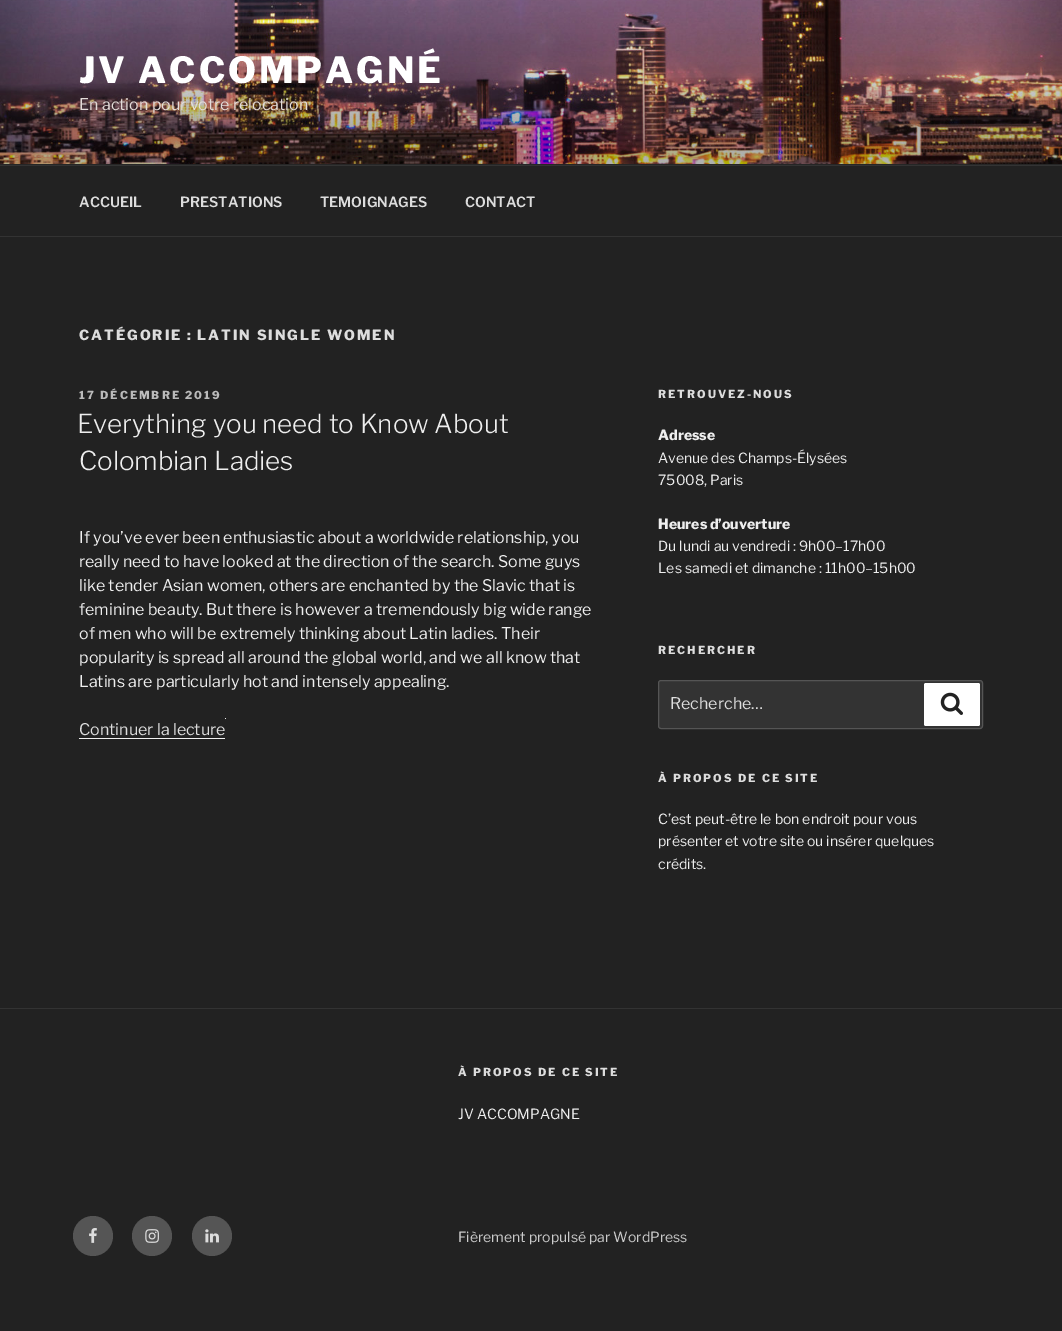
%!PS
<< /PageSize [1062 1331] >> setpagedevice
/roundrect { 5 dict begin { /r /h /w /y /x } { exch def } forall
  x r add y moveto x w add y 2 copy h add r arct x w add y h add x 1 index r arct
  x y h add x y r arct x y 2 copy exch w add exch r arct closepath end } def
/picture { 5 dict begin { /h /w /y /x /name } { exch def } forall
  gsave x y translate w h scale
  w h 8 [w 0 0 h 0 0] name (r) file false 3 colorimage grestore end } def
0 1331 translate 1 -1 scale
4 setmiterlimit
0.133 setgray
0 0 1062 1331 rectfill
0.149 setgray
0 164 1062 1 rectfill
(img1.rgb) 0 0 1062 164 picture
/LibreFranklin-ExtraBold [36 0 0 -36 0 0] selectfont
1 setgray
79 83 moveto 2.9 0 (JV ACCOMPAGNÉ) ashow
/LibreFranklin-Regular [16 0 0 -16 0 0] selectfont
0.89 0.863 0.851 setrgbcolor
79 110 moveto (En action pour votre relocation) show
0.2 setgray
0 165 1062 1 rectfill
0 236 1062 1 rectfill
/LibreFranklin-SemiBold [14 0 0 -14 0 0] selectfont
0.867 setgray
79 207 moveto (ACCUEIL) show
180 207 moveto (PRESTATIONS) show
320 207 moveto (TEMOIGNAGES) show
465 207 moveto (CONTACT) show
/LibreFranklin-ExtraBold [14 0 0 -14 0 0] selectfont
79 340 moveto 1.95 0 (CATÉGORIE : LATIN SINGLE WOMEN) ashow
/LibreFranklin-ExtraBold [11 0 0 -11 0 0] selectfont
0.733 setgray
79 399 moveto 2 0 (17 DÉCEMBRE 2019) ashow
/LibreFranklin-Light [26 0 0 -26 0 0] selectfont
0.933 setgray
77 433 moveto (Everything you need to Know About) show
79 470 moveto (Colombian Ladies) show
/LibreFranklin-Regular [16 0 0 -16 0 0] selectfont
79 543 moveto (If you’ve ever been enthusiastic about a worldwide relationship, you) show
79 567 moveto (really need to have looked at the direction of the search. Some guys) show
79 591 moveto (like tender Asian women, others are enchanted by the Slavic that is) show
79 615 moveto (feminine beauty. But there is however a tremendously big wide range) show
79 639 moveto (of men who will be extremely thinking about Latin ladies. Their) show
79 663 moveto (popularity is spread all around the global world, and we all know that) show
79 687 moveto (Latins are particularly hot and intensely appealing.) show
0.867 setgray
79 735 moveto (Continuer la lecture) show
0.941 setgray
79 738 146 1 rectfill
225 718 1 1 rectfill
/LibreFranklin-ExtraBold [11 0 0 -11 0 0] selectfont
0.867 setgray
658 398 moveto 2 0 (RETROUVEZ-NOUS) ashow
/LibreFranklin-ExtraBold [14 0 0 -14 0 0] selectfont
0.933 setgray
658 440 moveto (Adresse) show
/LibreFranklin-Regular [14 0 0 -14 0 0] selectfont
658 463 moveto (Avenue des Champs-Élysées) show
658 485 moveto (75008, Paris) show
/LibreFranklin-ExtraBold [14 0 0 -14 0 0] selectfont
658 529 moveto (Heures d’ouverture) show
/LibreFranklin-Regular [14 0 0 -14 0 0] selectfont
658 551 moveto (Du lundi au vendredi : 9h00–17h00) show
658 573 moveto (Les samedi et dimanche : 11h00–15h00) show
/LibreFranklin-ExtraBold [11 0 0 -11 0 0] selectfont
0.867 setgray
658 654 moveto 2 0 (RECHERCHER) ashow
0.2 setgray
658.5 680.5 324 48 2.5 roundrect gsave fill grestore
0.333 setgray
stroke
/LibreFranklin-Regular [16 0 0 -16 0 0] selectfont
0.867 setgray
670 709 moveto (Recherche…) show
1 setgray
924 683 56 43 2 roundrect fill
(img2.rgb) 940 692 23 23 picture
/LibreFranklin-ExtraBold [11 0 0 -11 0 0] selectfont
0.867 setgray
658 782 moveto 2 0 (À PROPOS DE CE SITE) ashow
/LibreFranklin-Regular [14 0 0 -14 0 0] selectfont
0.933 setgray
658 824 moveto (C’est peut-être le bon endroit pour vous) show
658 846 moveto (présenter et votre site ou insérer quelques) show
658 869 moveto (crédits.) show
0.2 setgray
0 1008 1062 1 rectfill
/LibreFranklin-ExtraBold [11 0 0 -11 0 0] selectfont
0.867 setgray
458 1076 moveto 2 0 (À PROPOS DE CE SITE) ashow
/LibreFranklin-Regular [14 0 0 -14 0 0] selectfont
0.933 setgray
458 1119 moveto (JV ACCOMPAGNE) show
0.333 setgray
newpath 93 1236 20 0 360 arc closepath fill
(img3.rgb) 89 1228 8 15 picture
newpath 152 1236 20 0 360 arc closepath fill
(img4.rgb) 145 1229 14 14 picture
newpath 212 1236 20 0 360 arc closepath fill
(img5.rgb) 205 1229 14 14 picture
0.8 setgray
458 1242 moveto (Fièrement propulsé par WordPress) show
showpage
